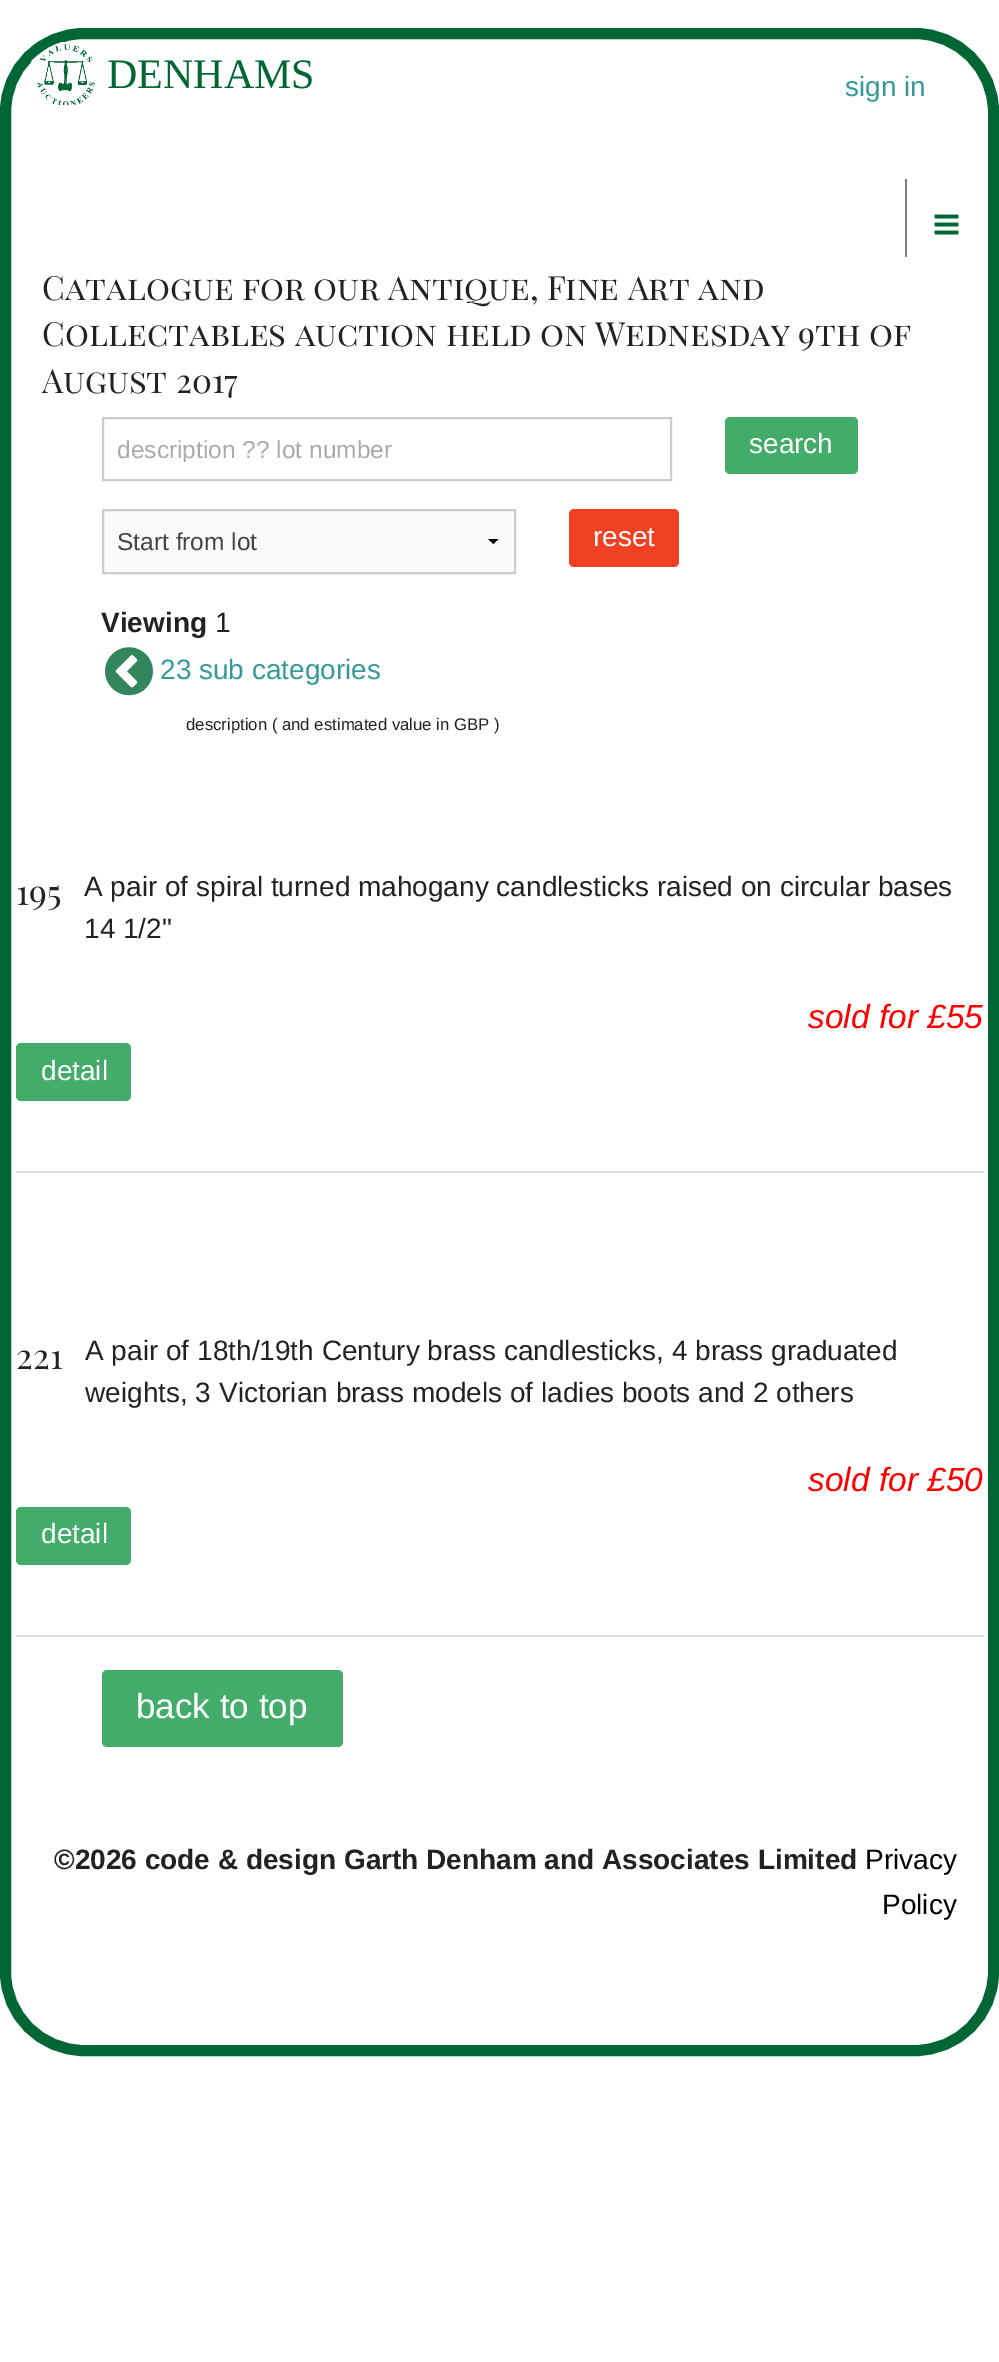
%!PS
<< /PageSize [999 2362] >> setpagedevice
/roundrect { 5 dict begin { /r /h /w /y /x } { exch def } forall
  x r add y moveto x w add y 2 copy h add r arct x w add y h add x 1 index r arct
  x y h add x y r arct x y 2 copy exch w add exch r arct closepath end } def
/picture { 5 dict begin { /h /w /y /x /name } { exch def } forall
  gsave x y translate w h scale
  w h 8 [w 0 0 h 0 0] name (r) file false 3 colorimage grestore end } def
0 2362 translate 1 -1 scale
4 setmiterlimit
1 setgray
0 0 999 2362 rectfill
0 0.4 0.2 setrgbcolor
11 setlinewidth
5.5 33.5 988 2017 78.5 roundrect stroke
gsave
11 39 978 2007 74 roundrect clip newpath
1 setgray
33 42 282 63 rectfill
grestore
(img1.rgb) 31 42 64 63 picture
/LiberationSerif-Regular [42 0 0 -42 0 0] selectfont
107 88 moveto (DENHAMS) show
/LiberationSans-Regular [28 0 0 -28 0 0] selectfont
0.2 0.6 0.6 setrgbcolor
845 96 moveto (sign in) show
0.502 setgray
905 179 2 78 rectfill
(img2.rgb) 934 214 25 21 picture
/PlayfairDisplaySC-Regular [33.25 0 0 -33.25 0 0] selectfont
0.133 setgray
42 300 moveto (Catalogue for our Antique, Fine Art and) show
42 346 moveto (Collectables auction held on Wednesday 9th of) show
42 393 moveto (August 2017) show
0.8 setgray
2 setlinewidth
103 418 568 62 rectstroke
gsave
117 434 539 28 rectclip
/LiberationSans-Regular [24.5 0 0 -24.5 0 0] selectfont
0.667 setgray
117 458 moveto (description ?? lot number) show
grestore
0.263 0.675 0.416 setrgbcolor
725 417 133 57 5 roundrect fill
/LiberationSans-Regular [28 0 0 -28 0 0] selectfont
1 setgray
749 453 moveto (search) show
0.941 0.255 0.141 setrgbcolor
569 509 110 58 5 roundrect fill
1 setgray
593 546 moveto (reset) show
0.98 setgray
104 511 410 61 rectfill
0 setgray
newpath 498.5 539 moveto 493.5 544 lineto 488 539 lineto closepath fill
0.8 setgray
103 510 412 63 rectstroke
/LiberationSans-Regular [24.5 0 0 -24.5 0 0] selectfont
0.267 setgray
117 550 moveto (Start from lot) show
/LiberationSans-Bold [28 0 0 -28 0 0] selectfont
0.133 setgray
101 632 moveto (Viewing) show
/LiberationSans-Regular [28 0 0 -28 0 0] selectfont
215 632 moveto (1) show
(img3.rgb) 105 647 48 49 picture
0.2 0.6 0.6 setrgbcolor
160 679 moveto (23 sub categories) show
/LiberationSans-Regular [16.75 0 0 -16.75 0 0] selectfont
0.133 setgray
186 730 moveto (description \( and estimated value in GBP \)) show
/PlayfairDisplaySC-Regular [35 0 0 -35 0 0] selectfont
16 905 moveto (195) show
/LiberationSans-Regular [28 0 0 -28 0 0] selectfont
84 896 moveto (A pair of spiral turned mahogany candlesticks raised on circular bases) show
84 938 moveto (14 1/2") show
/LiberationSans-Italic [33.5 0 0 -33.5 0 0] selectfont
1 0 0 setrgbcolor
808 1028 moveto (sold for £55) show
0.263 0.675 0.416 setrgbcolor
16 1043 115 58 5 roundrect fill
/LiberationSans-Regular [28 0 0 -28 0 0] selectfont
1 setgray
41 1080 moveto (detail) show
0.867 setgray
16 1171 968 2 rectfill
/PlayfairDisplaySC-Regular [35 0 0 -35 0 0] selectfont
0.133 setgray
16 1369 moveto (221) show
/LiberationSans-Regular [28 0 0 -28 0 0] selectfont
85 1360 moveto (A pair of 18th/19th Century brass candlesticks, 4 brass graduated) show
85 1402 moveto (weights, 3 Victorian brass models of ladies boots and 2 others) show
/LiberationSans-Italic [33.5 0 0 -33.5 0 0] selectfont
1 0 0 setrgbcolor
808 1491 moveto (sold for £50) show
0.263 0.675 0.416 setrgbcolor
16 1507 115 58 5 roundrect fill
/LiberationSans-Regular [28 0 0 -28 0 0] selectfont
1 setgray
41 1543 moveto (detail) show
0.867 setgray
16 1635 968 2 rectfill
0.263 0.675 0.416 setrgbcolor
102 1670 241 77 5 roundrect fill
/LiberationSans-Regular [35 0 0 -35 0 0] selectfont
1 setgray
136 1718 moveto (back to top) show
/LiberationSans-Bold [28 0 0 -28 0 0] selectfont
0.133 setgray
54 1869 moveto (©2026 code & design Garth Denham and Associates Limited) show
/LiberationSans-Regular [28 0 0 -28 0 0] selectfont
0 setgray
865 1869 moveto (Privacy) show
882 1914 moveto (Policy) show
showpage
